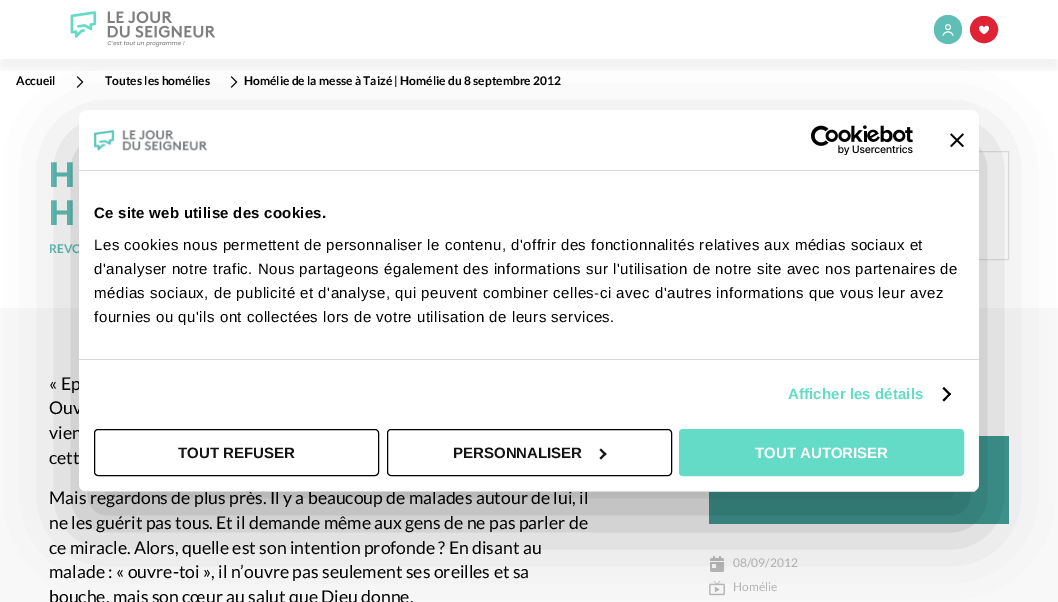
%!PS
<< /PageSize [1058 602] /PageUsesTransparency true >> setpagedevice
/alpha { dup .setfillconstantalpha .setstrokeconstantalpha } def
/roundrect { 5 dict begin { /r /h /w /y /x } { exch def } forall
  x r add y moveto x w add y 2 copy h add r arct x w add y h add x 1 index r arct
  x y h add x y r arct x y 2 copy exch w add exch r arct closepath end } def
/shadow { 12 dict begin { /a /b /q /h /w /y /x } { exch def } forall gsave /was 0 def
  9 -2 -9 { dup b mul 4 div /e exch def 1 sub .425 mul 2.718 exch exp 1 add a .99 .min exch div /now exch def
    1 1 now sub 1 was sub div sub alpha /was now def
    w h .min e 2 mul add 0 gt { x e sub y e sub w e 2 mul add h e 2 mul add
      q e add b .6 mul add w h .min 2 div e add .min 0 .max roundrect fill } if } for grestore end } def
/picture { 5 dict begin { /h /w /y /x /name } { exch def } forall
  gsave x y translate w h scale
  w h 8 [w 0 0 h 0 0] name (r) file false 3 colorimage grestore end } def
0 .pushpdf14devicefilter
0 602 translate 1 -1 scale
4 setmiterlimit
0.973 setgray
0 0 1058 602 rectfill
1 setgray
0 0 1058 308 rectfill
(img4.rgb) 76 76 8 12 picture
(img4.rgb) 230 76 8 12 picture
gsave
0 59 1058 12 rectclip
0 setgray
0 10 1058 59 0 5 0.06 shadow
grestore
(img1.rgb) 70 11 146 36 picture
0.373 0.745 0.714 setrgbcolor
934 15 28 29 14 roundrect fill
(img2.rgb) 942 24 12 12 picture
0.875 0.137 0.208 setrgbcolor
970.5 16.5 27 26 13 roundrect gsave fill grestore
stroke
(img3.rgb) 979 25 10 10 picture
/Lato-Bold [12 0 0 -12 0 0] selectfont
0 setgray
16 85 moveto (Accueil) show
105 85 moveto (Toutes les homélies) show
244 85 moveto (Homélie de la messe à Taizé | Homélie du 8 septembre 2012) show
/Lato-Black [34 0 0 -34 0 0] selectfont
0.373 0.745 0.714 setrgbcolor
49 187 moveto (H) show
49 225 moveto (H) show
/Lato-Bold [12 0 0 -12 0 0] selectfont
49 253 moveto (REVO) show
0.886 setgray
679.5 151.5 329 108 rectstroke
/Lato-Regular [17.6 0 0 -17.6 0 0] selectfont
0 setgray
49 390 moveto (« Ep) show
49 414 moveto (Ouv) show
49 439 moveto (vien) show
49 464 moveto (cett) show
49 504 moveto (Mais regardons de plus près. Il y a beaucoup de malades autour de lui, il) show
49 529 moveto (ne les guérit pas tous. Et il demande même aux gens de ne pas parler de) show
49 554 moveto (ce miracle. Alors, quelle est son intention profonde ? En disant au) show
49 578 moveto (malade : « ouvre-toi », il n’ouvre pas seulement ses oreilles et sa) show
49 603 moveto (bouche, mais son cœur au salut que Dieu donne.) show
0.251 0.596 0.569 setrgbcolor
709 436 300 88 rectfill
(img5.rgb) 710 556 15 16 picture
/Lato-Regular [12 0 0 -12 0 0] selectfont
0.714 setgray
733 567 moveto (08/09/2012) show
(img6.rgb) 709 581 16 15 picture
733 591 moveto (Homélie) show
0 setgray
79 142 900 382 8 34 0.3 shadow
1 setgray
79 110 900 382 8 roundrect fill
0.851 setgray
79 170 900 1 rectfill
(img7.rgb) 94 130 113 21 picture
(img8.rgb) 811 125 102 30 picture
(img9.rgb) 950 133 14 14 picture
79 359 900 1 rectfill
/LiberationSans-Bold [15 0 0 -15 0 0] selectfont
0 setgray
94 218 moveto 0.25 0 (Ce site web utilise des cookies.) ashow
/LiberationSans-Regular [15 0 0 -15 0 0] selectfont
94 250 moveto 0.5 0 (Les cookies nous permettent de personnaliser le contenu, d'offrir des fonctionnalités relatives aux médias sociaux et) ashow
94 274 moveto 0.5 0 (d'analyser notre trafic. Nous partageons également des informations sur l'utilisation de notre site avec nos partenaires de) ashow
94 298 moveto 0.5 0 (médias sociaux, de publicité et d'analyse, qui peuvent combiner celles-ci avec d'autres informations que vous leur avez) ashow
94 322 moveto 0.5 0 (fournies ou qu'ils ont collectées lors de votre utilisation de leurs services.) ashow
/LiberationSans-Bold [15 0 0 -15 0 0] selectfont
0.388 0.859 0.78 setrgbcolor
788 399 moveto 0.1 0 (Afficher les détails) ashow
0 setgray
newpath 944 387 moveto 951 394 lineto 949.5 395.5 lineto 942.5 388.5 lineto closepath fill
newpath 949.5 393 moveto 951 394 lineto 944 401.5 lineto 942.5 400 lineto closepath fill
gsave
79 110 900 382 8 roundrect clip newpath
0.851 setgray
79 491 900 1 rectfill
grestore
94.5 429.5 284 46 3.5 roundrect stroke
0.078 setgray
178 458 moveto (TOUT REFUSER) show
0 setgray
387.5 429.5 284 46 3.5 roundrect stroke
0.078 setgray
453 458 moveto (PERSONNALISER) show
newpath 601 448.5 moveto 606.5 454 lineto 605 455.5 lineto 599.5 450 lineto closepath fill
newpath 605 452.5 moveto 606.5 454 lineto 601 459.5 lineto 599.5 458 lineto closepath fill
0.388 0.859 0.78 setrgbcolor
679.5 429.5 284 46 3.5 roundrect gsave fill grestore
stroke
1 setgray
755 458 moveto (TOUT AUTORISER) show
.poppdf14devicefilter showpage
